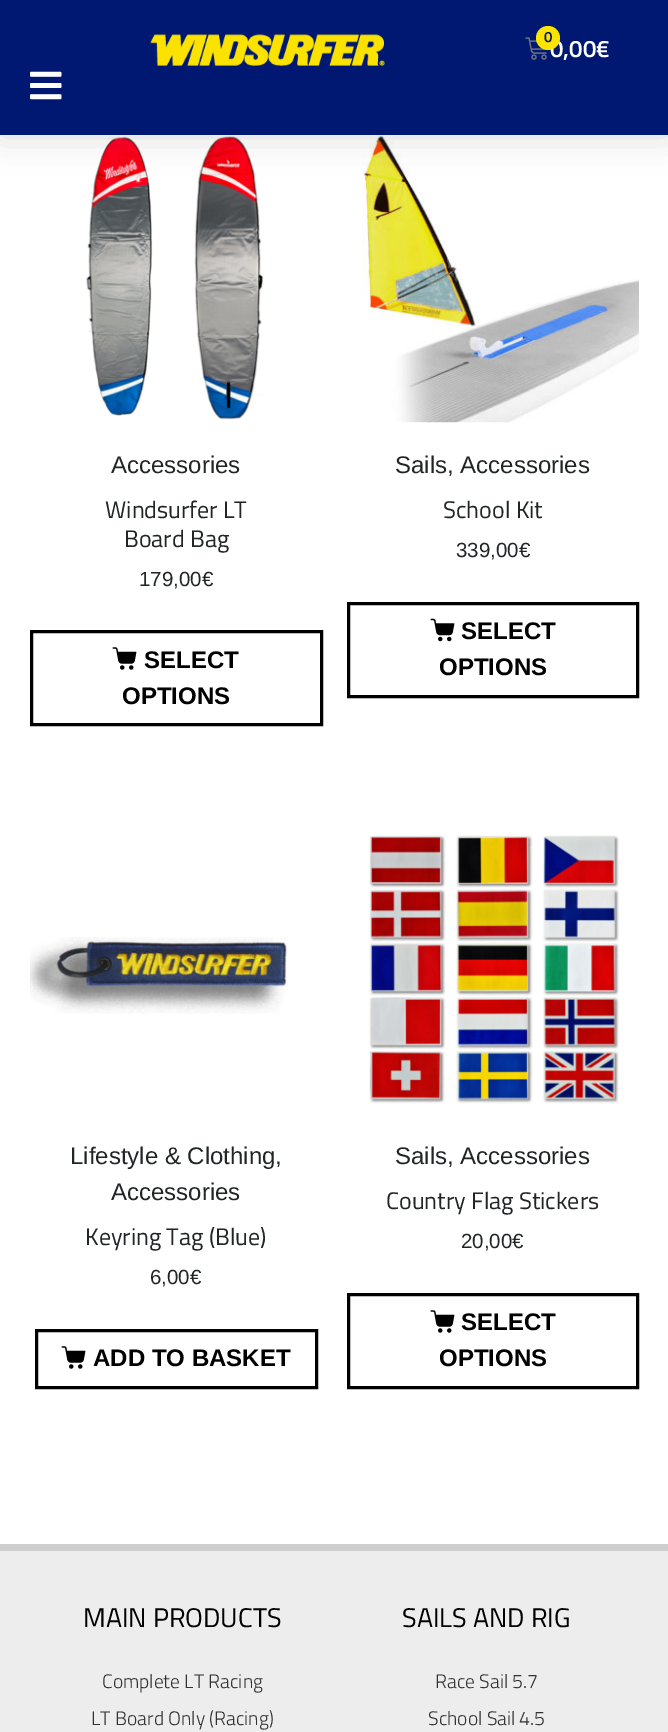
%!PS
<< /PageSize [668 1732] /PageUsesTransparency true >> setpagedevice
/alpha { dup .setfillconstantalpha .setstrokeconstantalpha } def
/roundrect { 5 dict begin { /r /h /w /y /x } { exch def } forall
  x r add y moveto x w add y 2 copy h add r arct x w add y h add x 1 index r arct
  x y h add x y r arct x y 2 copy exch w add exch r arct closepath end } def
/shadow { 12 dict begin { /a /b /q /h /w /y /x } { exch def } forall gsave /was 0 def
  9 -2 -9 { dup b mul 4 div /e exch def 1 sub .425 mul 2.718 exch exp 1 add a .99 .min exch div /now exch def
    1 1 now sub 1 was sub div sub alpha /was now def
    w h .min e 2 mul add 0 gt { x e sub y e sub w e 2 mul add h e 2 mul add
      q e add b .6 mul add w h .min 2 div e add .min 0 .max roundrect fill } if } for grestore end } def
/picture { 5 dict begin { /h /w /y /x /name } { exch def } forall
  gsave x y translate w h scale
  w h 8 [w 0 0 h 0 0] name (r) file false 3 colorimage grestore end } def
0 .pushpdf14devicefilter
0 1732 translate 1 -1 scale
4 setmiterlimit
1 setgray
0 0 668 1732 rectfill
(img4.rgb) 86 136 178 284 picture
(img6.rgb) 362 135 277 288 picture
0 setgray
0 0 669 135 0 18 0.15 shadow
0 0.094 0.443 setrgbcolor
0 0 668 135 rectfill
(img1.rgb) 150 34 235 32 picture
(img2.rgb) 525 37 22 23 picture
/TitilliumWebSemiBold-SemiBold [24 0 0 -24 0 0] selectfont
1 setgray
550 57 moveto (0,00€) show
0.988 0.89 0 setrgbcolor
newpath 548 38 12 0 360 arc closepath fill
/TitilliumWebSemiBold-SemiBold [15 0 0 -15 0 0] selectfont
0 0.094 0.443 setrgbcolor
544 42 moveto (0) show
(img3.rgb) 30 71 32 29 picture
/LiberationSans-Regular [24 0 0 -24 0 0] selectfont
0.129 0.145 0.149 setrgbcolor
111 473 moveto (Accessories) show
/TitilliumWeb-Regular [24 0 0 -24 0 0] selectfont
105 518 moveto (Windsurfer LT) show
124 547 moveto (Board Bag) show
/LiberationSans-Regular [20.5 0 0 -20.5 0 0] selectfont
139 586 moveto (179,00€) show
0 setgray
3 setlinewidth
31.5 631.5 290 93 rectstroke
(img5.rgb) 112 647 25 23 picture
/LiberationSans-Bold [24 0 0 -24 0 0] selectfont
144 668 moveto (SELECT) show
122 704 moveto (OPTIONS) show
/LiberationSans-Regular [24 0 0 -24 0 0] selectfont
0.129 0.145 0.149 setrgbcolor
395 473 moveto (Sails, Accessories) show
/TitilliumWeb-Regular [24 0 0 -24 0 0] selectfont
443 518 moveto (School Kit) show
/LiberationSans-Regular [20.5 0 0 -20.5 0 0] selectfont
456 557 moveto (339,00€) show
0 setgray
348.5 603.5 289 93 rectstroke
(img7.rgb) 430 618 25 24 picture
/LiberationSans-Bold [24 0 0 -24 0 0] selectfont
461 639 moveto (SELECT) show
439 675 moveto (OPTIONS) show
(img8.rgb) 30 937 258 77 picture
/LiberationSans-Regular [24 0 0 -24 0 0] selectfont
0.129 0.145 0.149 setrgbcolor
70 1164 moveto (Lifestyle & Clothing,) show
111 1200 moveto (Accessories) show
/TitilliumWeb-Regular [24 0 0 -24 0 0] selectfont
85 1245 moveto (Keyring Tag \(Blue\)) show
/LiberationSans-Regular [20.5 0 0 -20.5 0 0] selectfont
150 1284 moveto (6,00€) show
0 setgray
36.5 1330.5 280 57 rectstroke
(img5.rgb) 61 1346 25 23 picture
/LiberationSans-Bold [24 0 0 -24 0 0] selectfont
93 1366 moveto (ADD TO BASKET) show
(img9.rgb) 369 835 250 269 picture
/LiberationSans-Regular [24 0 0 -24 0 0] selectfont
0.129 0.145 0.149 setrgbcolor
395 1164 moveto (Sails, Accessories) show
/TitilliumWeb-Regular [24 0 0 -24 0 0] selectfont
386 1209 moveto (Country Flag Stickers) show
/LiberationSans-Regular [20.5 0 0 -20.5 0 0] selectfont
461 1248 moveto (20,00€) show
0 setgray
348.5 1294.5 289 93 rectstroke
(img5.rgb) 430 1310 25 23 picture
/LiberationSans-Bold [24 0 0 -24 0 0] selectfont
461 1330 moveto (SELECT) show
439 1366 moveto (OPTIONS) show
0.929 setgray
0 1551 668 181 rectfill
0.808 setgray
0 1544 668 7 rectfill
/TitilliumWeb-Regular [27 0 0 -27 0 0] selectfont
0 setgray
83 1627 moveto (MAIN PRODUCTS) show
/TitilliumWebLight-Light [19.5 0 0 -19.5 0 0] selectfont
0.196 setgray
102 1688 moveto (Complete LT Racing) show
91 1725 moveto (LT Board Only \(Racing\)) show
/TitilliumWeb-Regular [27 0 0 -27 0 0] selectfont
0 setgray
402 1627 moveto (SAILS AND RIG) show
/TitilliumWebLight-Light [19.5 0 0 -19.5 0 0] selectfont
0.196 setgray
435 1688 moveto (Race Sail 5.7) show
428 1725 moveto (School Sail 4.5) show
.poppdf14devicefilter showpage
